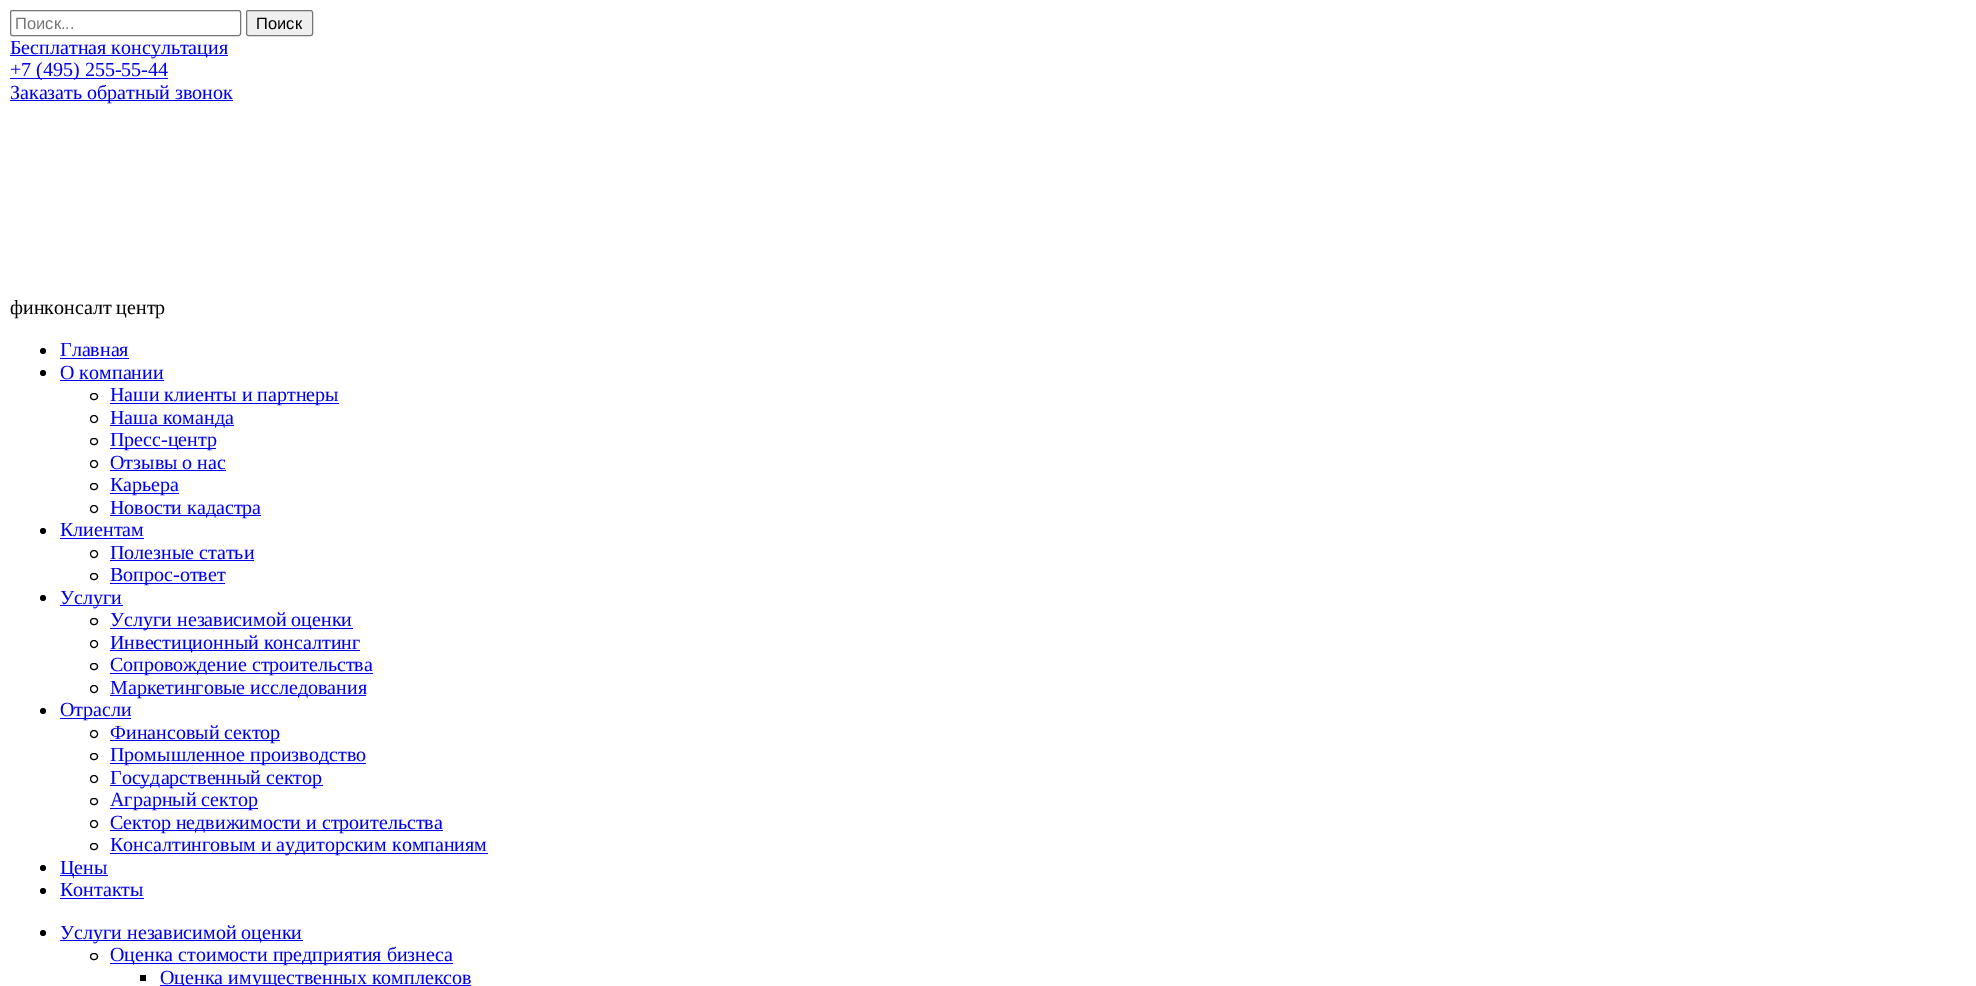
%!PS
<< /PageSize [1976 986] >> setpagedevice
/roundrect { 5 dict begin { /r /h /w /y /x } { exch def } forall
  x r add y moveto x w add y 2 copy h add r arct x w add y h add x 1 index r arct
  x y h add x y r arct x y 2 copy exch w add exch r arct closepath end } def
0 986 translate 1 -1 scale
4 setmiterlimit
1 setgray
0 0 1976 986 rectfill
0.463 setgray
10.5 10.5 230 25 2 roundrect stroke
/LiberationSans-Regular [16.5 0 0 -16.5 0 0] selectfont
0.459 setgray
15 29 moveto (Поиск...) show
0.937 setgray
246.5 10.5 66 25 2 roundrect gsave fill grestore
0.463 setgray
stroke
0 setgray
256 29 moveto (Поиск) show
0 0 0.933 setrgbcolor
10 55 218 1 rectfill
/LiberationSerif-Regular [20 0 0 -20 0 0] selectfont
10 54 moveto (Бесплатная консультация) show
10 78 158 1 rectfill
10 76 moveto (+7 \(495\) 255-55-44) show
10 100 223 1 rectfill
10 99 moveto (Заказать обратный звонок) show
0 setgray
10 314 moveto (финконсалт центр) show
newpath 43 351 3 0 360 arc closepath fill
0 0 0.933 setrgbcolor
60 356 moveto (Главная) show
60 358 69 1 rectfill
0 setgray
newpath 43 373 3 0 360 arc closepath fill
0 0 0.933 setrgbcolor
60 379 moveto (О компании) show
60 380 104 1 rectfill
0 setgray
90.5 393.5 7 6 3 roundrect stroke
0 0 0.933 setrgbcolor
110 403 229 1 rectfill
110 401 moveto (Наши клиенты и партнеры) show
0 setgray
newpath 94 419 3.5 0 360 arc closepath stroke
0 0 0.933 setrgbcolor
110 425 124 1 rectfill
110 424 moveto (Наша команда) show
0 setgray
90.5 438.5 7 6 3 roundrect stroke
0 0 0.933 setrgbcolor
110 448 106 1 rectfill
110 446 moveto (Пресс-центр) show
0 setgray
newpath 94 464 3.5 0 360 arc closepath stroke
0 0 0.933 setrgbcolor
110 469 moveto (Отзывы о нас) show
110 470 116 1 rectfill
0 setgray
90.5 483.5 7 6 3 roundrect stroke
0 0 0.933 setrgbcolor
110 493 69 1 rectfill
110 491 moveto (Карьера) show
0 setgray
newpath 94 509 3.5 0 360 arc closepath stroke
0 0 0.933 setrgbcolor
110 515 151 1 rectfill
110 514 moveto (Новости кадастра) show
0 setgray
newpath 43 531 3 0 360 arc closepath fill
0 0 0.933 setrgbcolor
60 536 moveto (Клиентам) show
60 538 84 1 rectfill
0 setgray
newpath 94 554 3.5 0 360 arc closepath stroke
0 0 0.933 setrgbcolor
110 559 moveto (Полезные статьи) show
110 560 144 1 rectfill
0 setgray
90.5 573.5 7 6 3 roundrect stroke
0 0 0.933 setrgbcolor
110 583 115 1 rectfill
110 581 moveto (Вопрос-ответ) show
0 setgray
newpath 43 598 3 0 360 arc closepath fill
0 0 0.933 setrgbcolor
60 605 63 1 rectfill
60 604 moveto (Услуги) show
0 setgray
90.5 618.5 7 6 3 roundrect stroke
0 0 0.933 setrgbcolor
110 628 243 1 rectfill
110 626 moveto (Услуги независимой оценки) show
0 setgray
newpath 94 644 3.5 0 360 arc closepath stroke
0 0 0.933 setrgbcolor
110 650 250 1 rectfill
110 649 moveto (Инвестиционный консалтинг) show
0 setgray
90.5 663.5 7 6 3 roundrect stroke
0 0 0.933 setrgbcolor
110 673 263 1 rectfill
110 671 moveto (Сопровождение строительства) show
0 setgray
newpath 94 689 3.5 0 360 arc closepath stroke
0 0 0.933 setrgbcolor
110 695 256 1 rectfill
110 694 moveto (Маркетинговые исследования) show
0 setgray
newpath 43 711 3 0 360 arc closepath fill
0 0 0.933 setrgbcolor
60 718 71 1 rectfill
60 716 moveto (Отрасли) show
0 setgray
newpath 94 734 3.5 0 360 arc closepath stroke
0 0 0.933 setrgbcolor
110 740 170 1 rectfill
110 739 moveto (Финансовый сектор) show
0 setgray
90.5 753.5 7 6 3 roundrect stroke
0 0 0.933 setrgbcolor
110 763 256 1 rectfill
110 761 moveto (Промышленное производство) show
0 setgray
newpath 94 779 3.5 0 360 arc closepath stroke
0 0 0.933 setrgbcolor
110 785 213 1 rectfill
110 784 moveto (Государственный сектор) show
0 setgray
90.5 798.5 7 6 3 roundrect stroke
0 0 0.933 setrgbcolor
110 808 148 1 rectfill
110 806 moveto (Аграрный сектор) show
0 setgray
newpath 94 824 3.5 0 360 arc closepath stroke
0 0 0.933 setrgbcolor
110 830 333 1 rectfill
110 829 moveto (Сектор недвижимости и строительства) show
0 setgray
90.5 843.5 7 6 3 roundrect stroke
0 0 0.933 setrgbcolor
110 853 378 1 rectfill
110 851 moveto (Консалтинговым и аудиторским компаниям) show
0 setgray
newpath 43 868 3 0 360 arc closepath fill
0 0 0.933 setrgbcolor
60 875 48 1 rectfill
60 874 moveto (Цены) show
0 setgray
newpath 43 891 3 0 360 arc closepath fill
0 0 0.933 setrgbcolor
60 896 moveto (Контакты) show
60 898 84 1 rectfill
0 setgray
newpath 43 933 3 0 360 arc closepath fill
0 0 0.933 setrgbcolor
60 940 243 1 rectfill
60 939 moveto (Услуги независимой оценки) show
0 setgray
90.5 953.5 7 6 3 roundrect stroke
0 0 0.933 setrgbcolor
110 963 343 1 rectfill
110 961 moveto (Оценка стоимости предприятия бизнеса) show
0 setgray
140 975 6 6 rectfill
0 0 0.933 setrgbcolor
160 985 311 1 rectfill
160 984 moveto (Оценка имущественных комплексов) show
showpage
